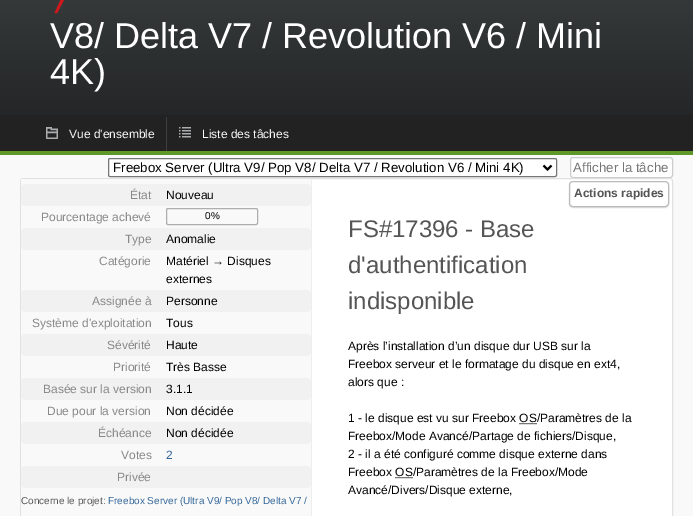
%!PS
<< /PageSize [693 516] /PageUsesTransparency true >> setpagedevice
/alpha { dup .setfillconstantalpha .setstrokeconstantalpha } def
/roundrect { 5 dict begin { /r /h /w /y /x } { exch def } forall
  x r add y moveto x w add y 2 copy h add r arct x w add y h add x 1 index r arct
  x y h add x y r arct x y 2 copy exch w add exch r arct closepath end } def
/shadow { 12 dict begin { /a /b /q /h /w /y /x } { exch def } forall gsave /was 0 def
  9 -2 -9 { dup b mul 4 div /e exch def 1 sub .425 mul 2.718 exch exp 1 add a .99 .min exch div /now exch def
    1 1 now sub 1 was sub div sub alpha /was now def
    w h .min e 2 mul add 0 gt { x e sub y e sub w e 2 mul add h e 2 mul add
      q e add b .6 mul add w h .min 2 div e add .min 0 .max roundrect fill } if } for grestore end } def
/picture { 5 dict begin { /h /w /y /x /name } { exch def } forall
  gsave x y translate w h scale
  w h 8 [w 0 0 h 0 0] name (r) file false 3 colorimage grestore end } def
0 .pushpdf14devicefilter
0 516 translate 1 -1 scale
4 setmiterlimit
0.976 setgray
0 0 693 516 rectfill
gsave newpath 0 0 moveto 693 0 lineto 693 115 lineto 0 115 lineto closepath clip newpath
<< /ShadingType 2 /ColorSpace /DeviceRGB /Coords [347 -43 347 115] /Extend [true true] /Function << /FunctionType 2 /Domain [0 1] /C0 [0.235 0.251 0.255] /C1 [0.141 0.149 0.153] /N 1 >> >> shfill grestore
(img1.rgb) 54 0 10 14 picture
/LiberationSans-Regular [36 0 0 -36 0 0] selectfont
1 setgray
50 48 moveto (V8/ Delta V7 / Revolution V6 / Mini) show
50 84 moveto (4K\)) show
0.133 setgray
0 115 693 36 rectfill
0.373 0.592 0.161 setrgbcolor
0 151 693 4 rectfill
(img2.rgb) 46 127 12 12 picture
/LiberationSans-Regular [12 0 0 -12 0 0] selectfont
0.976 setgray
69 138 moveto (Vue d'ensemble) show
(img3.rgb) 179 127 12 11 picture
0.235 0.251 0.255 setrgbcolor
166 117 1 34 rectfill
0.976 setgray
202 138 moveto (Liste des tâches) show
1 setgray
108.5 158.5 448 18 1.5 roundrect gsave fill grestore
0.463 setgray
stroke
0 setgray
2 setlinewidth
newpath 543.5 165.5 moveto 547.5 169.5 lineto 551.5 165.5 lineto stroke
/LiberationSans-Regular [13.3 0 0 -13.3 0 0] selectfont
113 172 moveto (Freebox Server \(Ultra V9/ Pop V8/ Delta V7 / Revolution V6 / Mini 4K\)) show
1 setgray
570.5 157.5 102 20 2.5 roundrect gsave fill grestore
0.8 setgray
1 setlinewidth
stroke
0.459 setgray
573 172 moveto (Afficher la tâche) show
1 setgray
20.5 178.5 652 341 2.5 roundrect gsave fill grestore
0.882 setgray
stroke
0.976 setgray
21 179 290 337 rectfill
0.933 setgray
311 179 1 337 rectfill
0.945 setgray
21 184 290 22 4 roundrect fill
/LiberationSans-Regular [12 0 0 -12 0 0] selectfont
0.533 setgray
130 199 moveto (État) show
0 setgray
166 199 moveto (Nouveau) show
0.533 setgray
41 221 moveto (Pourcentage achevé) show
0.682 setgray
166.5 208.5 91 16 1.5 roundrect stroke
/LiberationSans-Regular [10 0 0 -10 0 0] selectfont
0 setgray
205 219 moveto (0%) show
0.945 setgray
21 228 290 22 4 roundrect fill
/LiberationSans-Regular [12 0 0 -12 0 0] selectfont
0.533 setgray
125 243 moveto (Type) show
0 setgray
166 243 moveto (Anomalie) show
0.533 setgray
99 265 moveto (Catégorie) show
0 setgray
166 265 moveto (Matériel → Disques) show
166 283 moveto (externes) show
0.945 setgray
21 290 290 22 4 roundrect fill
0.533 setgray
92 305 moveto (Assignée à) show
0 setgray
166 305 moveto (Personne) show
0.533 setgray
32 327 moveto (Système d'exploitation) show
0 setgray
166 327 moveto (Tous) show
0.945 setgray
21 334 290 22 4 roundrect fill
0.533 setgray
107 349 moveto (Sévérité) show
0 setgray
166 349 moveto (Haute) show
0.533 setgray
113 371 moveto (Priorité) show
0 setgray
166 371 moveto (Très Basse) show
0.945 setgray
21 378 290 22 4 roundrect fill
0.533 setgray
43 393 moveto (Basée sur la version) show
0 setgray
166 393 moveto (3.1.1) show
0.533 setgray
47 415 moveto (Due pour la version) show
0 setgray
166 415 moveto (Non décidée) show
0.945 setgray
21 422 290 22 4 roundrect fill
0.533 setgray
98 437 moveto (Échéance) show
0 setgray
166 437 moveto (Non décidée) show
0.533 setgray
121 459 moveto (Votes) show
0.2 0.4 0.6 setrgbcolor
166 459 moveto (2) show
0.945 setgray
21 466 290 22 4 roundrect fill
0.533 setgray
117 481 moveto (Privée) show
/LiberationSans-Regular [10 0 0 -10 0 0] selectfont
0.333 setgray
21 504 moveto (Concerne le projet:) show
0.2 0.4 0.6 setrgbcolor
108 504 moveto (Freebox Server \(Ultra V9/ Pop V8/ Delta V7 /) show
/LiberationSans-Regular [24 0 0 -24 0 0] selectfont
0.333 setgray
348 237 moveto (FS#17396 - Base) show
348 273 moveto (d'authentification) show
348 309 moveto (indisponible) show
/LiberationSans-Regular [12 0 0 -12 0 0] selectfont
0 setgray
348 350 moveto (Après l’installation d’un disque dur USB sur la) show
348 368 moveto (Freebox serveur et le formatage du disque en ext4,) show
348 386 moveto (alors que :) show
348 422 moveto (1 - le disque est vu sur Freebox OS/Paramètres de la) show
[1 1] 0 setdash
newpath 519.5 423.5 moveto 537 423.5 lineto stroke
348 440 moveto (Freebox/Mode Avancé/Partage de fichiers/Disque,) show
348 458 moveto (2 - il a été configuré comme disque externe dans) show
348 476 moveto (Freebox OS/Paramètres de la Freebox/Mode) show
newpath 395.5 477.5 moveto 412.5 477.5 lineto stroke
348 494 moveto (Avancé/Divers/Disque externe,) show
0.867 setgray
569 182 100 26 4 0.5 1 shadow
1 setgray
569.5 181.5 99 25 3.5 roundrect gsave fill grestore
0.733 setgray
[] 0 setdash
stroke
/LiberationSans-Bold [12 0 0 -12 0 0] selectfont
0.333 setgray
574 197 moveto (Actions rapides) show
.poppdf14devicefilter showpage
